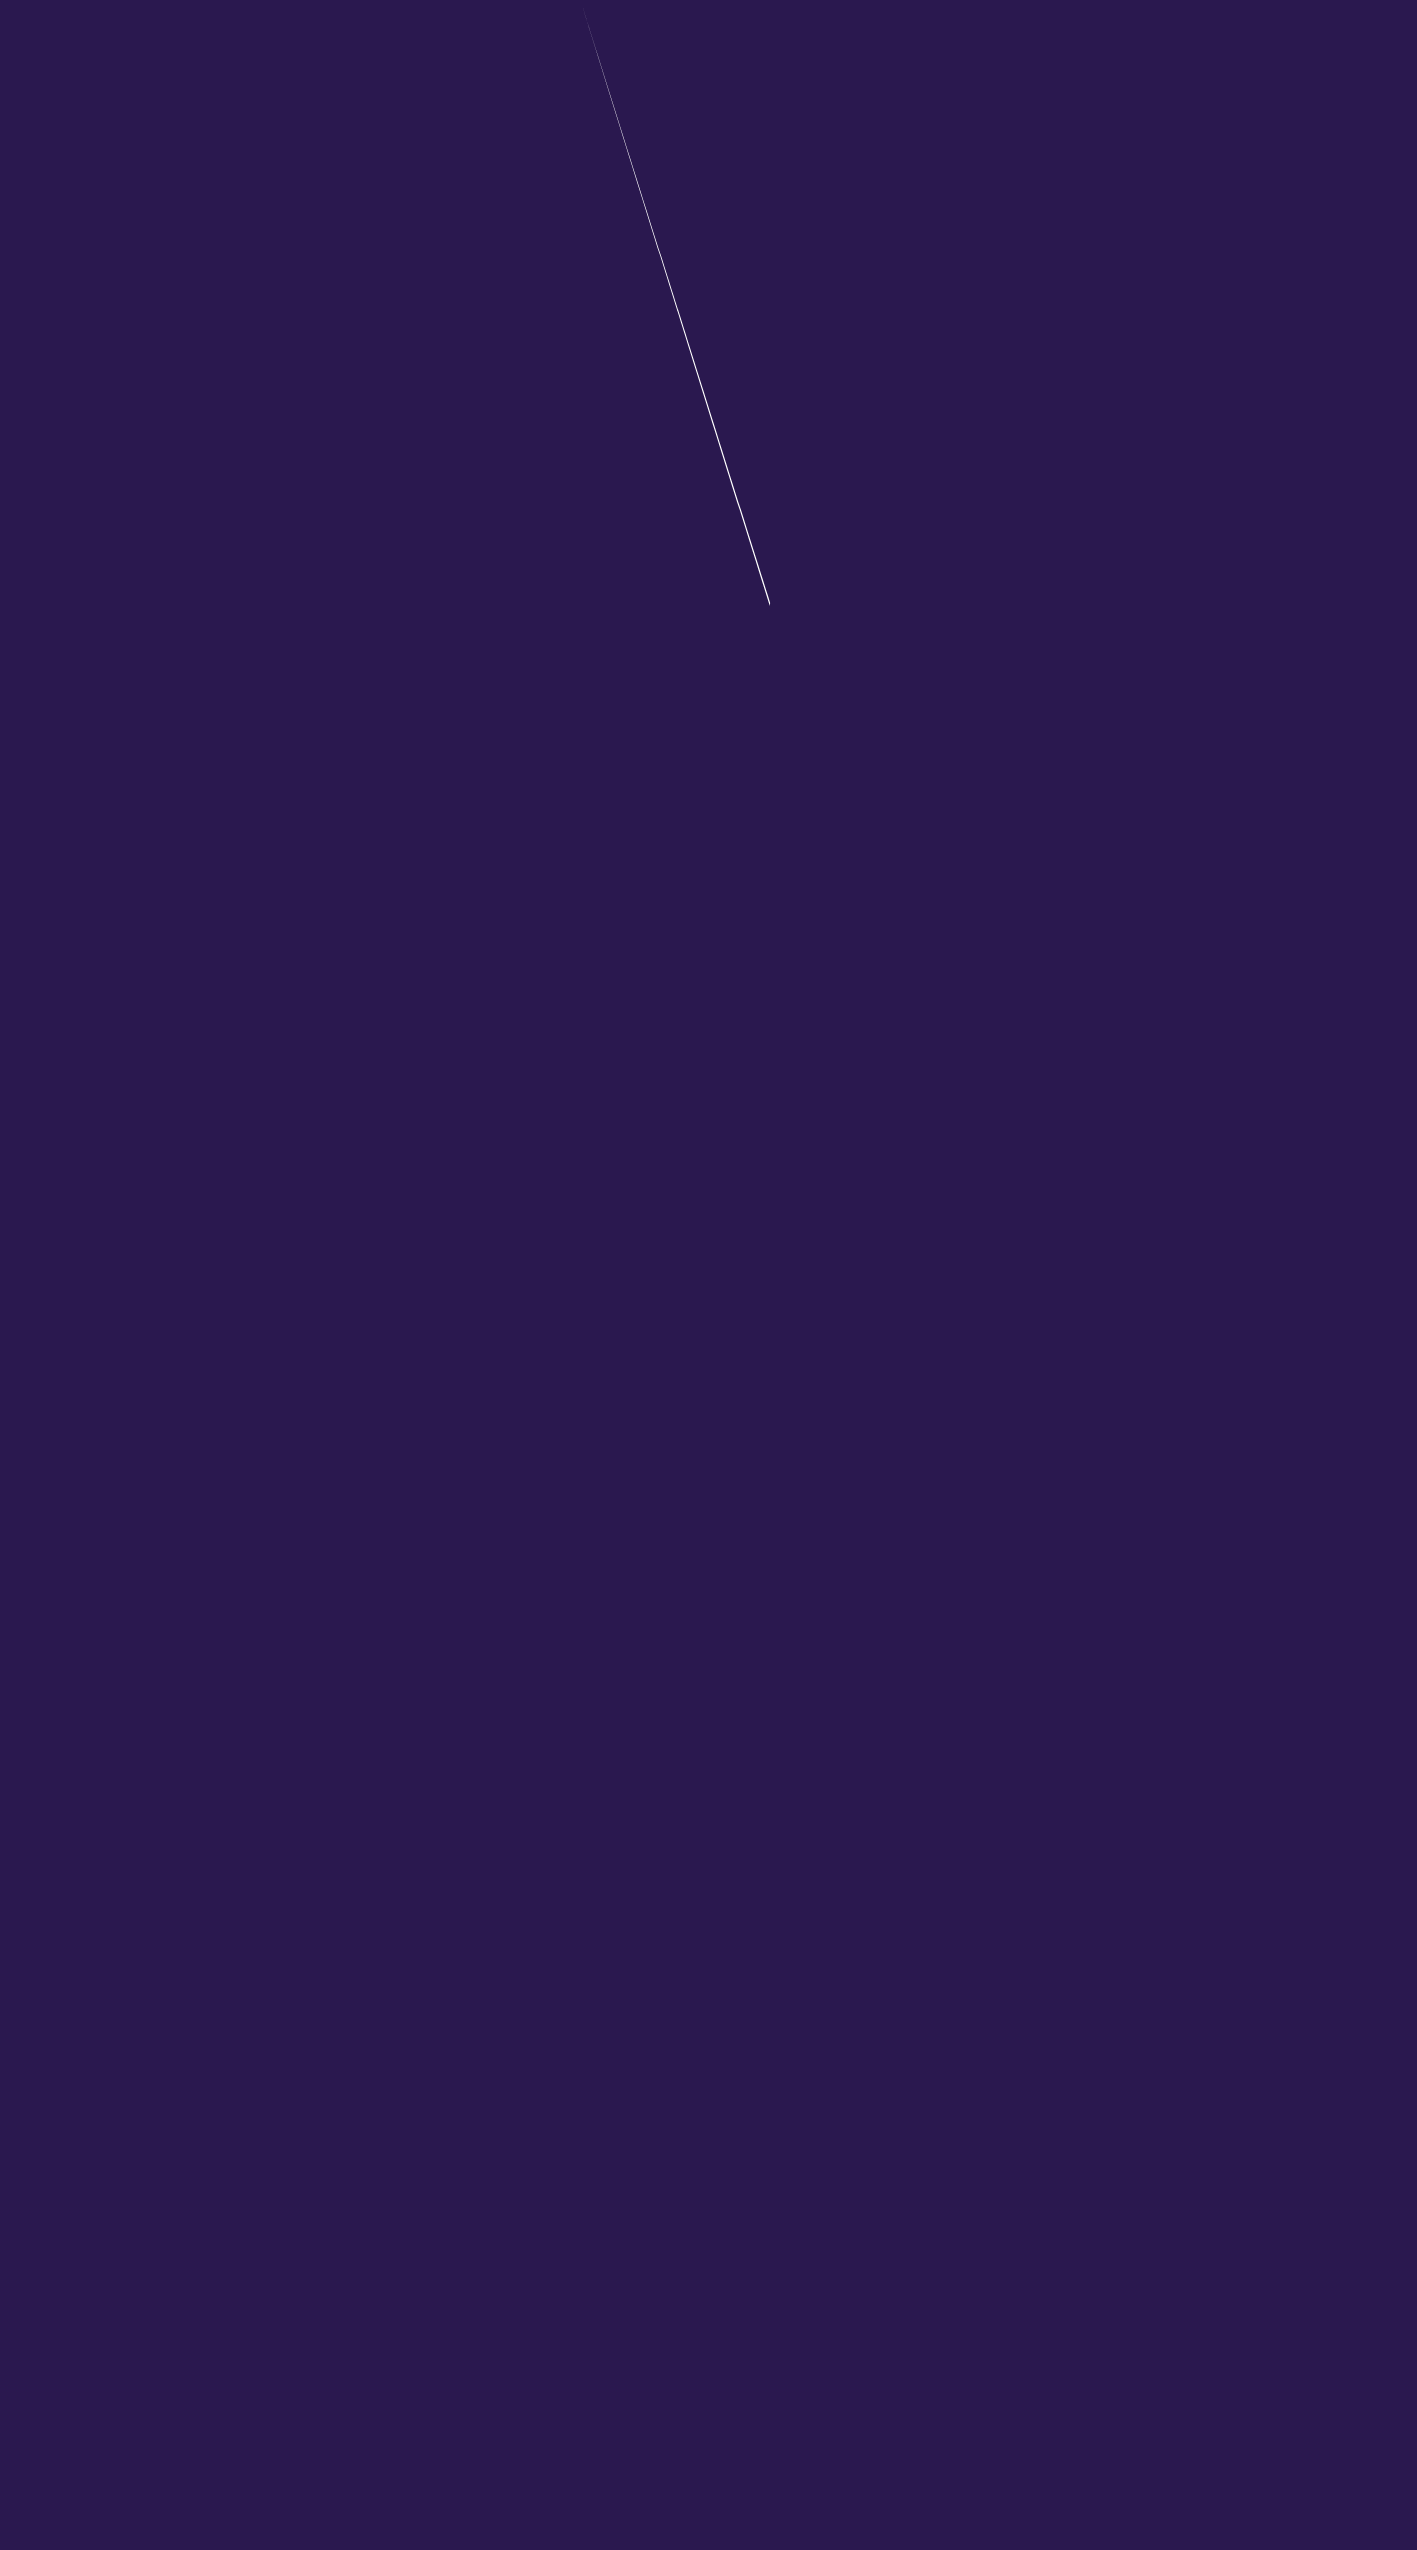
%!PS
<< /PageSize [1417 2550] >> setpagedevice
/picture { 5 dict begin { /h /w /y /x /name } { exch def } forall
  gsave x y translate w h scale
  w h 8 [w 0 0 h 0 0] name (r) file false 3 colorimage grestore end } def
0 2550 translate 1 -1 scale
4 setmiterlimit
1 setgray
0 0 1417 2550 rectfill
(img1.rgb) 0 0 1417 2550 picture
showpage
